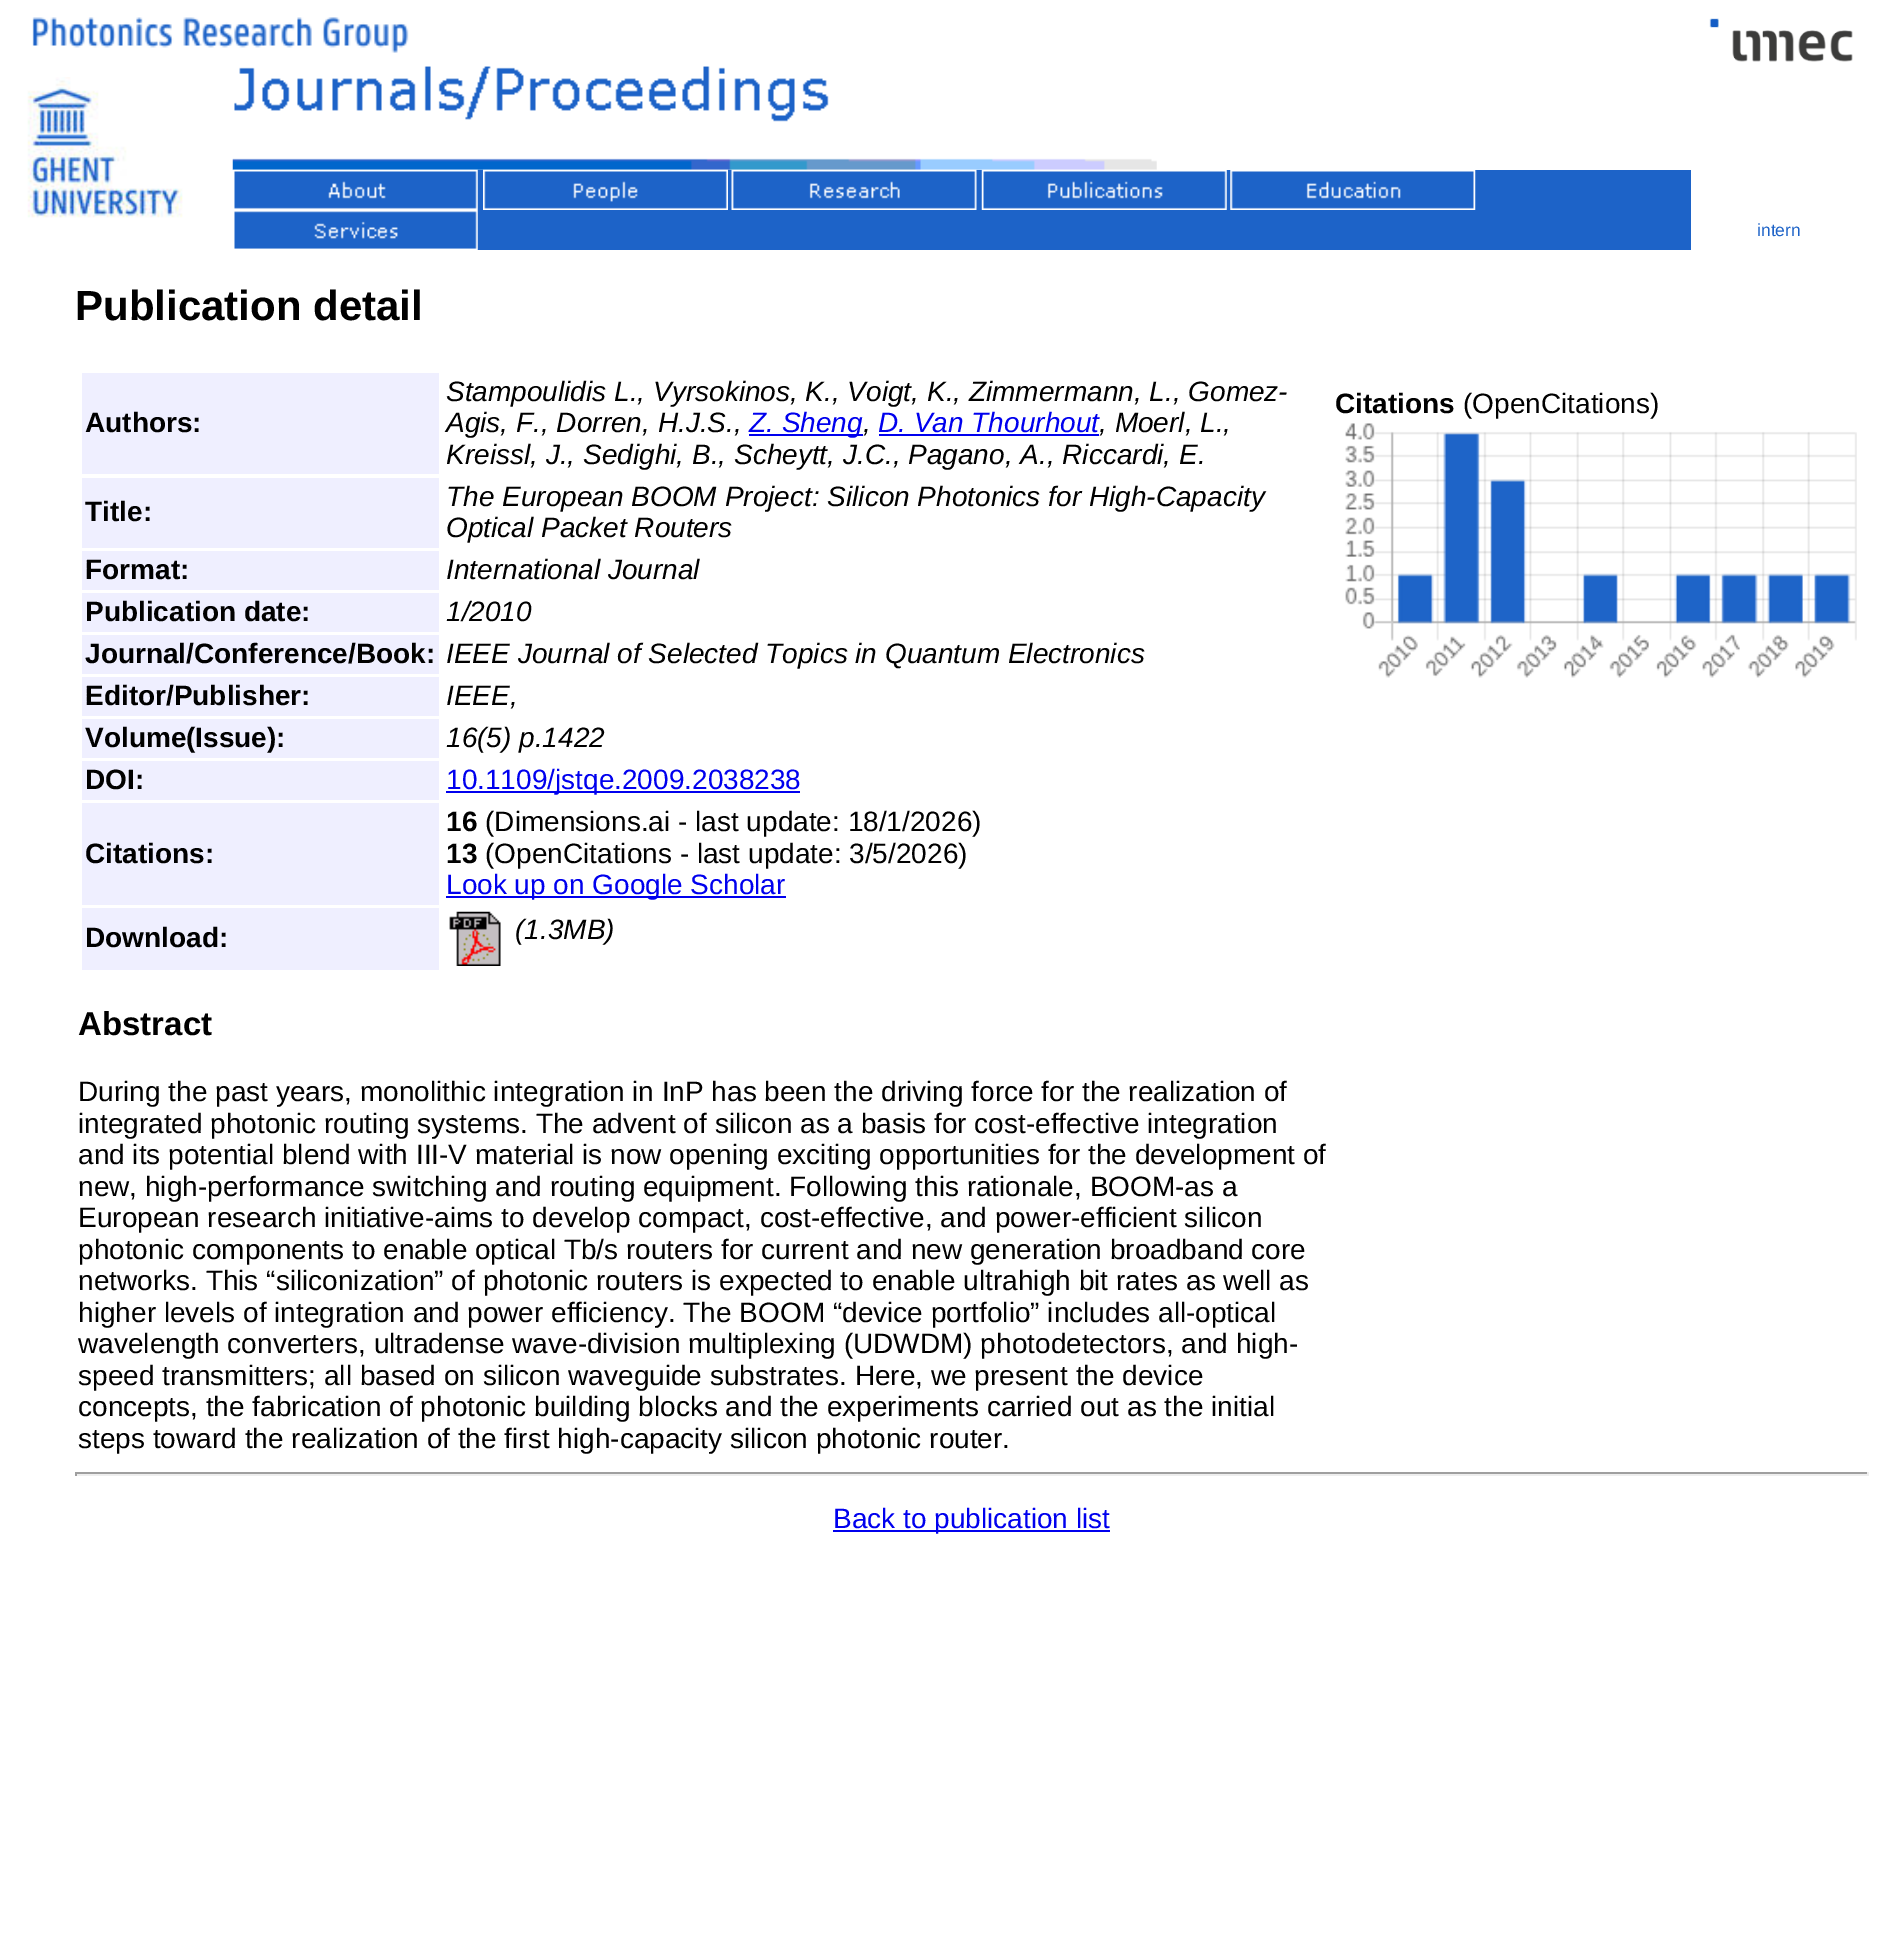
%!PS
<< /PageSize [1882 1955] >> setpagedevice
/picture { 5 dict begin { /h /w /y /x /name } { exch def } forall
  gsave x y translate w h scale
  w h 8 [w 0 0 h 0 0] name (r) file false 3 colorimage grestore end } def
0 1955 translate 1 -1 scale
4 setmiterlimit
1 setgray
0 0 1882 1955 rectfill
(img1.rgb) 32 17 377 36 picture
(img2.rgb) 27 77 156 141 picture
(img3.rgb) 232 66 925 104 picture
0.114 0.388 0.784 setrgbcolor
477 170 1214 80 rectfill
(img4.rgb) 233 169 245 41 picture
(img5.rgb) 483 169 245 41 picture
(img6.rgb) 731 169 246 41 picture
(img7.rgb) 981 169 246 41 picture
(img8.rgb) 1230 170 246 40 picture
(img9.rgb) 233 210 245 40 picture
(img10.rgb) 1709 18 144 44 picture
/LiberationSans-Regular [17.5 0 0 -17.5 0 0] selectfont
1757 236 moveto (intern) show
/LiberationSans-Bold [42 0 0 -42 0 0] selectfont
0 setgray
75 320 moveto (Publication detail) show
0.937 0.937 1 setrgbcolor
82 373 357 101 rectfill
/LiberationSans-Bold [28 0 0 -28 0 0] selectfont
0 setgray
85 432 moveto (Authors:) show
/LiberationSans-Italic [28 0 0 -28 0 0] selectfont
446 401 moveto (Stampoulidis L., Vyrsokinos, K., Voigt, K., Zimmermann, L., Gomez-) show
446 432 moveto (Agis, F., Dorren, H.J.S.,) show
0 0 0.933 setrgbcolor
749 434 114 2 rectfill
749 432 moveto (Z. Sheng) show
0 setgray
863 432 moveto (,) show
0 0 0.933 setrgbcolor
879 434 220 2 rectfill
878 432 moveto (D. Van Thourhout) show
0 setgray
1099 432 moveto (, Moerl, L.,) show
446 464 moveto (Kreissl, J., Sedighi, B., Scheytt, J.C., Pagano, A., Riccardi, E.) show
0.937 0.937 1 setrgbcolor
82 478 357 70 rectfill
/LiberationSans-Bold [28 0 0 -28 0 0] selectfont
0 setgray
85 521 moveto (Title:) show
/LiberationSans-Italic [28 0 0 -28 0 0] selectfont
446 506 moveto (The European BOOM Project: Silicon Photonics for High-Capacity) show
446 537 moveto (Optical Packet Routers) show
0.937 0.937 1 setrgbcolor
82 551 357 39 rectfill
/LiberationSans-Bold [28 0 0 -28 0 0] selectfont
0 setgray
85 579 moveto (Format:) show
/LiberationSans-Italic [28 0 0 -28 0 0] selectfont
446 579 moveto (International Journal) show
0.937 0.937 1 setrgbcolor
82 593 357 39 rectfill
/LiberationSans-Bold [28 0 0 -28 0 0] selectfont
0 setgray
85 621 moveto (Publication date:) show
/LiberationSans-Italic [28 0 0 -28 0 0] selectfont
446 621 moveto (1/2010) show
0.937 0.937 1 setrgbcolor
82 635 357 39 rectfill
/LiberationSans-Bold [28 0 0 -28 0 0] selectfont
0 setgray
85 663 moveto (Journal/Conference/Book:) show
/LiberationSans-Italic [28 0 0 -28 0 0] selectfont
446 663 moveto (IEEE Journal of Selected Topics in Quantum Electronics) show
0.937 0.937 1 setrgbcolor
82 677 357 39 rectfill
/LiberationSans-Bold [28 0 0 -28 0 0] selectfont
0 setgray
85 705 moveto (Editor/Publisher:) show
/LiberationSans-Italic [28 0 0 -28 0 0] selectfont
446 705 moveto (IEEE,) show
0.937 0.937 1 setrgbcolor
82 719 357 39 rectfill
/LiberationSans-Bold [28 0 0 -28 0 0] selectfont
0 setgray
85 747 moveto (Volume\(Issue\):) show
/LiberationSans-Italic [28 0 0 -28 0 0] selectfont
446 747 moveto (16\(5\) p.1422) show
0.937 0.937 1 setrgbcolor
82 761 357 39 rectfill
/LiberationSans-Bold [28 0 0 -28 0 0] selectfont
0 setgray
85 789 moveto (DOI:) show
0 0 0.933 setrgbcolor
446 791 354 2 rectfill
/LiberationSans-Regular [28 0 0 -28 0 0] selectfont
446 789 moveto (10.1109/jstqe.2009.2038238) show
0.937 0.937 1 setrgbcolor
82 803 357 102 rectfill
/LiberationSans-Bold [28 0 0 -28 0 0] selectfont
0 setgray
85 863 moveto (Citations:) show
446 831 moveto (16) show
/LiberationSans-Regular [28 0 0 -28 0 0] selectfont
485 831 moveto (\(Dimensions.ai - last update: 18/1/2026\)) show
/LiberationSans-Bold [28 0 0 -28 0 0] selectfont
446 863 moveto (13) show
/LiberationSans-Regular [28 0 0 -28 0 0] selectfont
485 863 moveto (\(OpenCitations - last update: 3/5/2026\)) show
0 0 0.933 setrgbcolor
446 896 340 2 rectfill
446 894 moveto (Look up on Google Scholar) show
0.937 0.937 1 setrgbcolor
82 908 357 62 rectfill
/LiberationSans-Bold [28 0 0 -28 0 0] selectfont
0 setgray
85 947 moveto (Download:) show
(img11.rgb) 449 911 52 55 picture
/LiberationSans-Italic [28 0 0 -28 0 0] selectfont
515 939 moveto (\(1.3MB\)) show
/LiberationSans-Bold [33 0 0 -33 0 0] selectfont
78 1035 moveto (Abstract) show
/LiberationSans-Regular [28 0 0 -28 0 0] selectfont
78 1101 moveto (During the past years, monolithic integration in InP has been the driving force for the realization of) show
78 1133 moveto (integrated photonic routing systems. The advent of silicon as a basis for cost-effective integration) show
78 1164 moveto (and its potential blend with III-V material is now opening exciting opportunities for the development of) show
78 1196 moveto (new, high-performance switching and routing equipment. Following this rationale, BOOM-as a) show
78 1227 moveto (European research initiative-aims to develop compact, cost-effective, and power-efficient silicon) show
78 1259 moveto (photonic components to enable optical Tb/s routers for current and new generation broadband core) show
78 1290 moveto (networks. This “siliconization” of photonic routers is expected to enable ultrahigh bit rates as well as) show
78 1322 moveto (higher levels of integration and power efficiency. The BOOM “device portfolio” includes all-optical) show
78 1353 moveto (wavelength converters, ultradense wave-division multiplexing \(UDWDM\) photodetectors, and high-) show
78 1385 moveto (speed transmitters; all based on silicon waveguide substrates. Here, we present the device) show
78 1416 moveto (concepts, the fabrication of photonic building blocks and the experiments carried out as the initial) show
78 1448 moveto (steps toward the realization of the first high-capacity silicon photonic router.) show
/LiberationSans-Bold [28 0 0 -28 0 0] selectfont
1335 413 moveto (Citations) show
/LiberationSans-Regular [28 0 0 -28 0 0] selectfont
1463 413 moveto (\(OpenCitations\)) show
(img12.rgb) 1345 423 512 255 picture
0.624 setgray
75 1472 1794 2 rectfill
0.933 setgray
1867 1472 2 4 rectfill
75 1474 1794 2 rectfill
0.624 setgray
75 1472 2 4 rectfill
0 0 0.933 setrgbcolor
833 1530 277 2 rectfill
833 1528 moveto (Back to publication list) show
showpage
